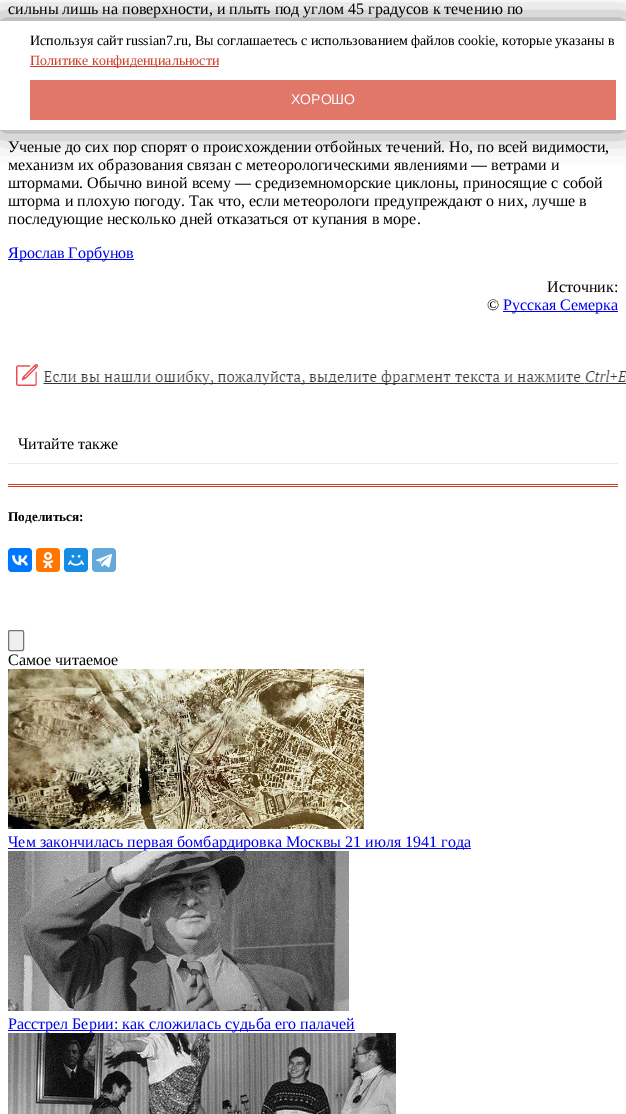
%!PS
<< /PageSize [626 1114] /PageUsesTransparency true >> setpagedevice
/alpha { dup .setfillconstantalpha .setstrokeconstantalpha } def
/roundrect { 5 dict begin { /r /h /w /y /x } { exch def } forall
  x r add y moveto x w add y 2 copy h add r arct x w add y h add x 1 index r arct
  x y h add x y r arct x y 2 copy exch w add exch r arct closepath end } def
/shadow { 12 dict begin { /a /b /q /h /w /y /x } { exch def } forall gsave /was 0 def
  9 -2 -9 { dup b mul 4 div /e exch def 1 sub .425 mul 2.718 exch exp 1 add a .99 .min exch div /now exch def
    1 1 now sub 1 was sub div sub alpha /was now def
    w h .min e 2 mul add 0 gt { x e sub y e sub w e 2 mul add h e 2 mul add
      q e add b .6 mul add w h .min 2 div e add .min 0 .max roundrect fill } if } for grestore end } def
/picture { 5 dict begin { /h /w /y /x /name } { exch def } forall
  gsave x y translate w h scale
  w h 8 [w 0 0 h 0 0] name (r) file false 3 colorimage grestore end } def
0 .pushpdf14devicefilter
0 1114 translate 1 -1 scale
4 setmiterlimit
1 setgray
0 0 626 1114 rectfill
/LiberationSerif-Regular [16 0 0 -16 0 0] selectfont
0 setgray
8 14 moveto (сильны лишь на поверхности, и плыть под углом 45 градусов к течению по) show
8 152 moveto (Ученые до сих пор спорят о происхождении отбойных течений. Но, по всей видимости,) show
8 170 moveto (механизм их образования связан с метеорологическими явлениями — ветрами и) show
8 188 moveto (штормами. Обычно виной всему — средиземноморские циклоны, приносящие с собой) show
8 206 moveto (шторма и плохую погоду. Так что, если метеорологи предупреждают о них, лучше в) show
8 224 moveto (последующие несколько дней отказаться от купания в море.) show
0 0 0.933 setrgbcolor
8 259 126 1 rectfill
8 258 moveto (Ярослав Горбунов) show
0 setgray
547 292 moveto (Источник:) show
487 310 moveto (©) show
0 0 0.933 setrgbcolor
503 311 115 1 rectfill
503 310 moveto (Русская Семерка) show
(img1.rgb) 16 364 610 22 picture
0.91 0.918 0.941 setrgbcolor
8 463 610 1 rectfill
0 setgray
18 449 moveto (Читайте также) show
0.824 0.235 0.153 setrgbcolor
8 484 610 1 rectfill
8 486 610 1 rectfill
/LiberationSerif-Bold [13.25 0 0 -13.25 0 0] selectfont
0 setgray
8 521 moveto (Поделиться:) show
0 0.467 1 setrgbcolor
8 548 24 24 4 roundrect fill
(img2.rgb) 12 555 16 11 picture
1 0.467 0 setrgbcolor
36 548 24 24 4 roundrect fill
(img3.rgb) 42 552 12 16 picture
0.086 0.553 0.886 setrgbcolor
64 548 24 24 4 roundrect fill
(img4.rgb) 68 555 16 11 picture
0.392 0.663 0.863 setrgbcolor
92 548 24 24 4 roundrect fill
(img5.rgb) 96 554 16 14 picture
0.937 setgray
8.5 630.5 15 20 1.5 roundrect gsave fill grestore
0.463 setgray
stroke
/LiberationSerif-Regular [16 0 0 -16 0 0] selectfont
0 setgray
8 665 moveto (Самое читаемое) show
(img6.rgb) 8 669 356 160 picture
0 0 0.933 setrgbcolor
8 848 463 1 rectfill
8 847 moveto (Чем закончилась первая бомбардировка Москвы 21 июля 1941 года) show
(img7.rgb) 8 851 341 160 picture
8 1030 347 1 rectfill
8 1029 moveto (Раcстрел Берии: как сложилась судьба его палачей) show
(img8.rgb) 8 1033 388 81 picture
0 setgray
0 21 626 109 0 15 0.5 shadow
1 setgray
0 21 626 109 rectfill
/LiberationSerif-Regular [14 0 0 -14 0 0] selectfont
0 setgray
30 45 moveto (Используя сайт russian7.ru, Вы соглашаетесь с использованием файлов cookie, которые указаны в) show
0.824 0.235 0.153 setrgbcolor
30 66 189 1 rectfill
30 65 moveto (Политике конфиденциальности) show
0.878 0.467 0.408 setrgbcolor
30 80 586 40 rectfill
/LiberationSans-Regular [14 0 0 -14 0 0] selectfont
1 setgray
291 104 moveto (ХОРОШО) show
.poppdf14devicefilter showpage
